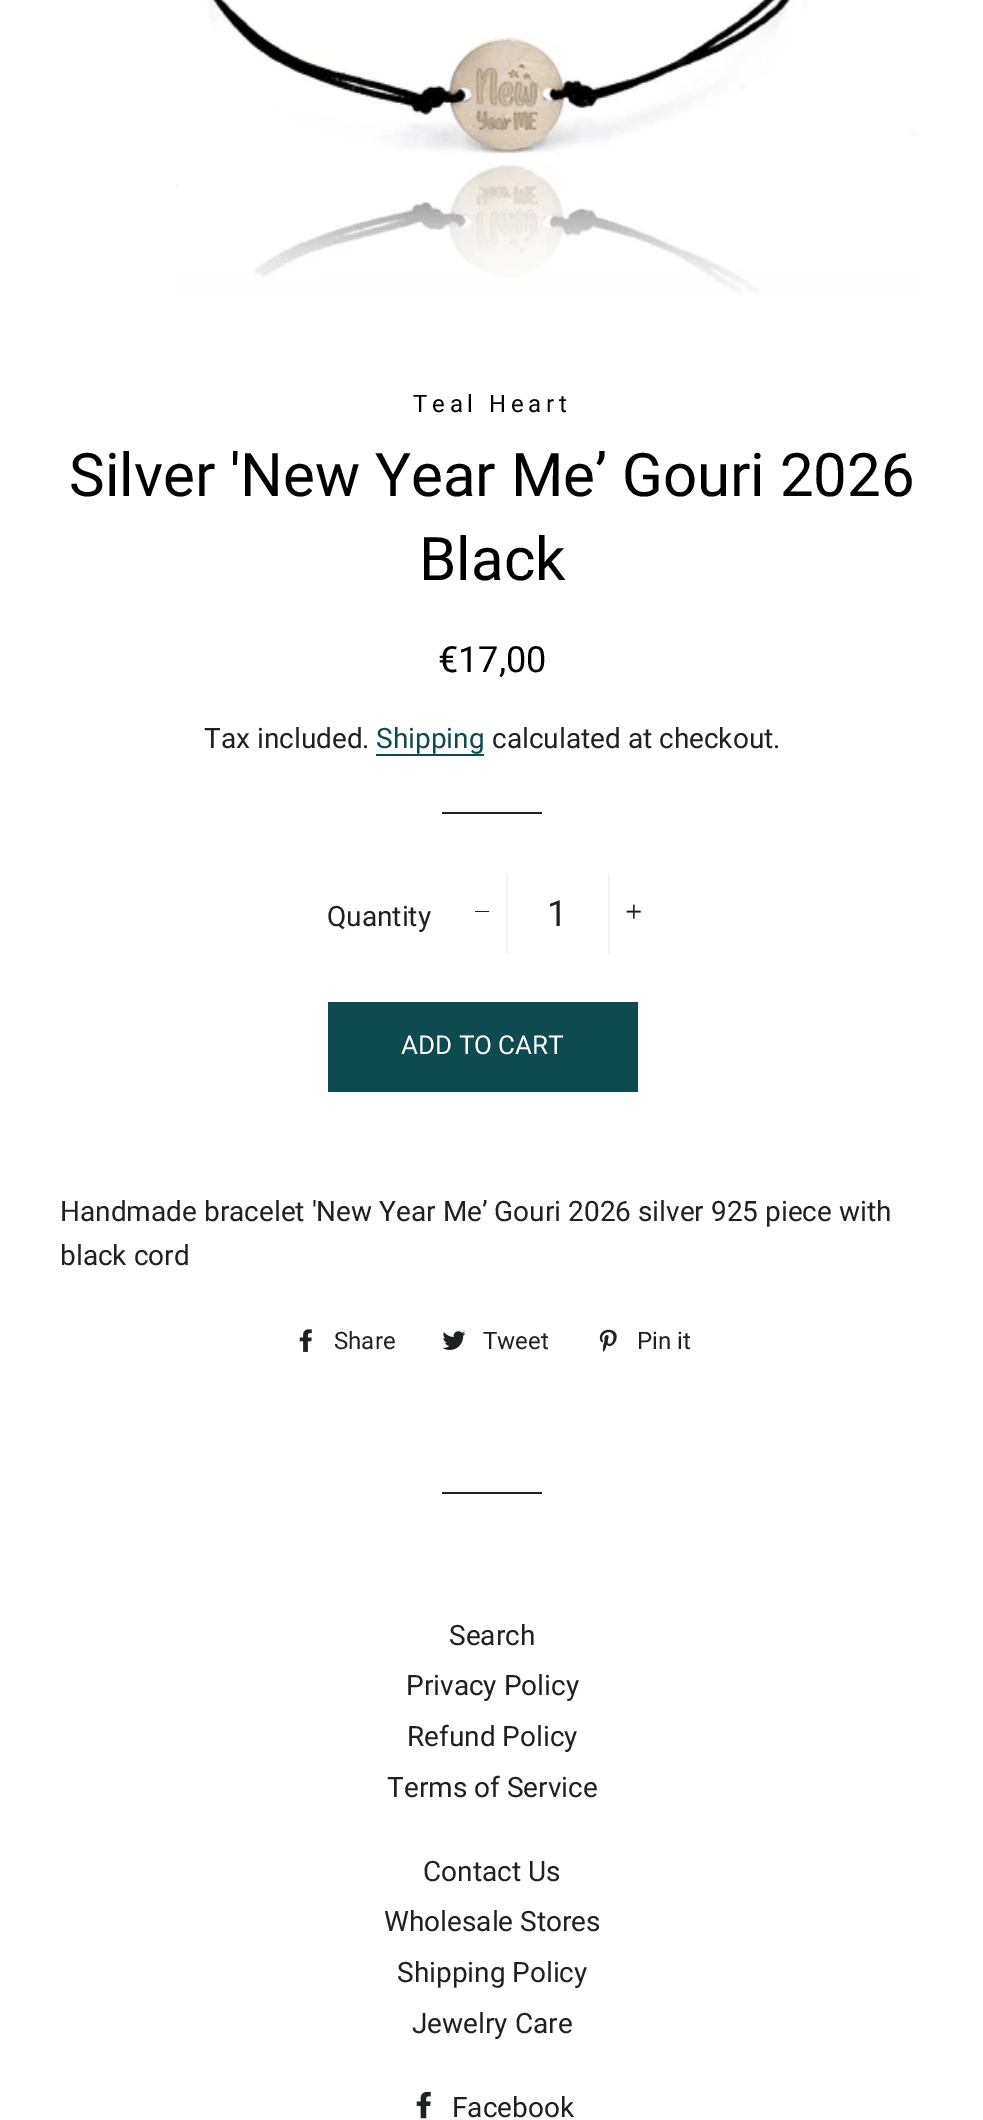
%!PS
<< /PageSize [983 2120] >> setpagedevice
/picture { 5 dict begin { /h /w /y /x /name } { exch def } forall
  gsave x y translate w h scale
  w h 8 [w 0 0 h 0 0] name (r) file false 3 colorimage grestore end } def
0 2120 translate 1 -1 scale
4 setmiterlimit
1 setgray
0 0 983 2120 rectfill
(img1.rgb) 176 0 744 295 picture
/Roboto-Regular [24 0 0 -24 0 0] selectfont
0 setgray
413 412 moveto 4.75 0 (Teal Heart) ashow
/Roboto-Regular [60 0 0 -60 0 0] selectfont
69 496 moveto (Silver 'New Year Me’ Gouri 2026) show
419 580 moveto (Black) show
/Roboto-Regular [36 0 0 -36 0 0] selectfont
438 672 moveto (€17,00) show
/Roboto-Regular [28 0 0 -28 0 0] selectfont
0.122 0.125 0.129 setrgbcolor
204 748 moveto (Tax included.) show
0.051 0.294 0.306 setrgbcolor
376 748 moveto (Shipping) show
376 754 108 2 rectfill
0.122 0.125 0.129 setrgbcolor
492 748 moveto (calculated at checkout.) show
442 812 100 2 rectfill
327 926 moveto (Quantity) show
0.949 setgray
506 874 2 80 rectfill
0.11 0.114 0.114 setrgbcolor
475 911 14 1 rectfill
/Roboto-Regular [36 0 0 -36 0 0] selectfont
0.122 0.125 0.129 setrgbcolor
547 926 moveto (1) show
0.949 setgray
608 874 2 80 rectfill
(img2.rgb) 626 904 15 15 picture
0.051 0.294 0.306 setrgbcolor
328 1002 310 90 rectfill
/Roboto-Regular [26 0 0 -26 0 0] selectfont
1 setgray
401 1054 moveto (ADD TO CART) show
/Roboto-Regular [28 0 0 -28 0 0] selectfont
0.122 0.125 0.129 setrgbcolor
60 1221 moveto (Handmade bracelet 'New Year Me’ Gouri 2026 silver 925 piece with) show
60 1265 moveto (black cord) show
(img3.rgb) 299 1329 13 23 picture
/Roboto-Regular [24 0 0 -24 0 0] selectfont
334 1349 moveto (Share) show
(img4.rgb) 442 1331 24 19 picture
483 1349 moveto (Tweet) show
(img5.rgb) 599 1329 18 23 picture
637 1349 moveto (Pin it) show
442 1492 100 2 rectfill
/Roboto-Regular [28 0 0 -28 0 0] selectfont
449 1645 moveto (Search) show
406 1695 moveto (Privacy Policy) show
407 1746 moveto (Refund Policy) show
387 1797 moveto (Terms of Service) show
423 1881 moveto (Contact Us) show
384 1931 moveto (Wholesale Stores) show
397 1982 moveto (Shipping Policy) show
412 2033 moveto (Jewelry Care) show
(img6.rgb) 416 2091 15 28 picture
452 2117 moveto (Facebook) show
showpage
